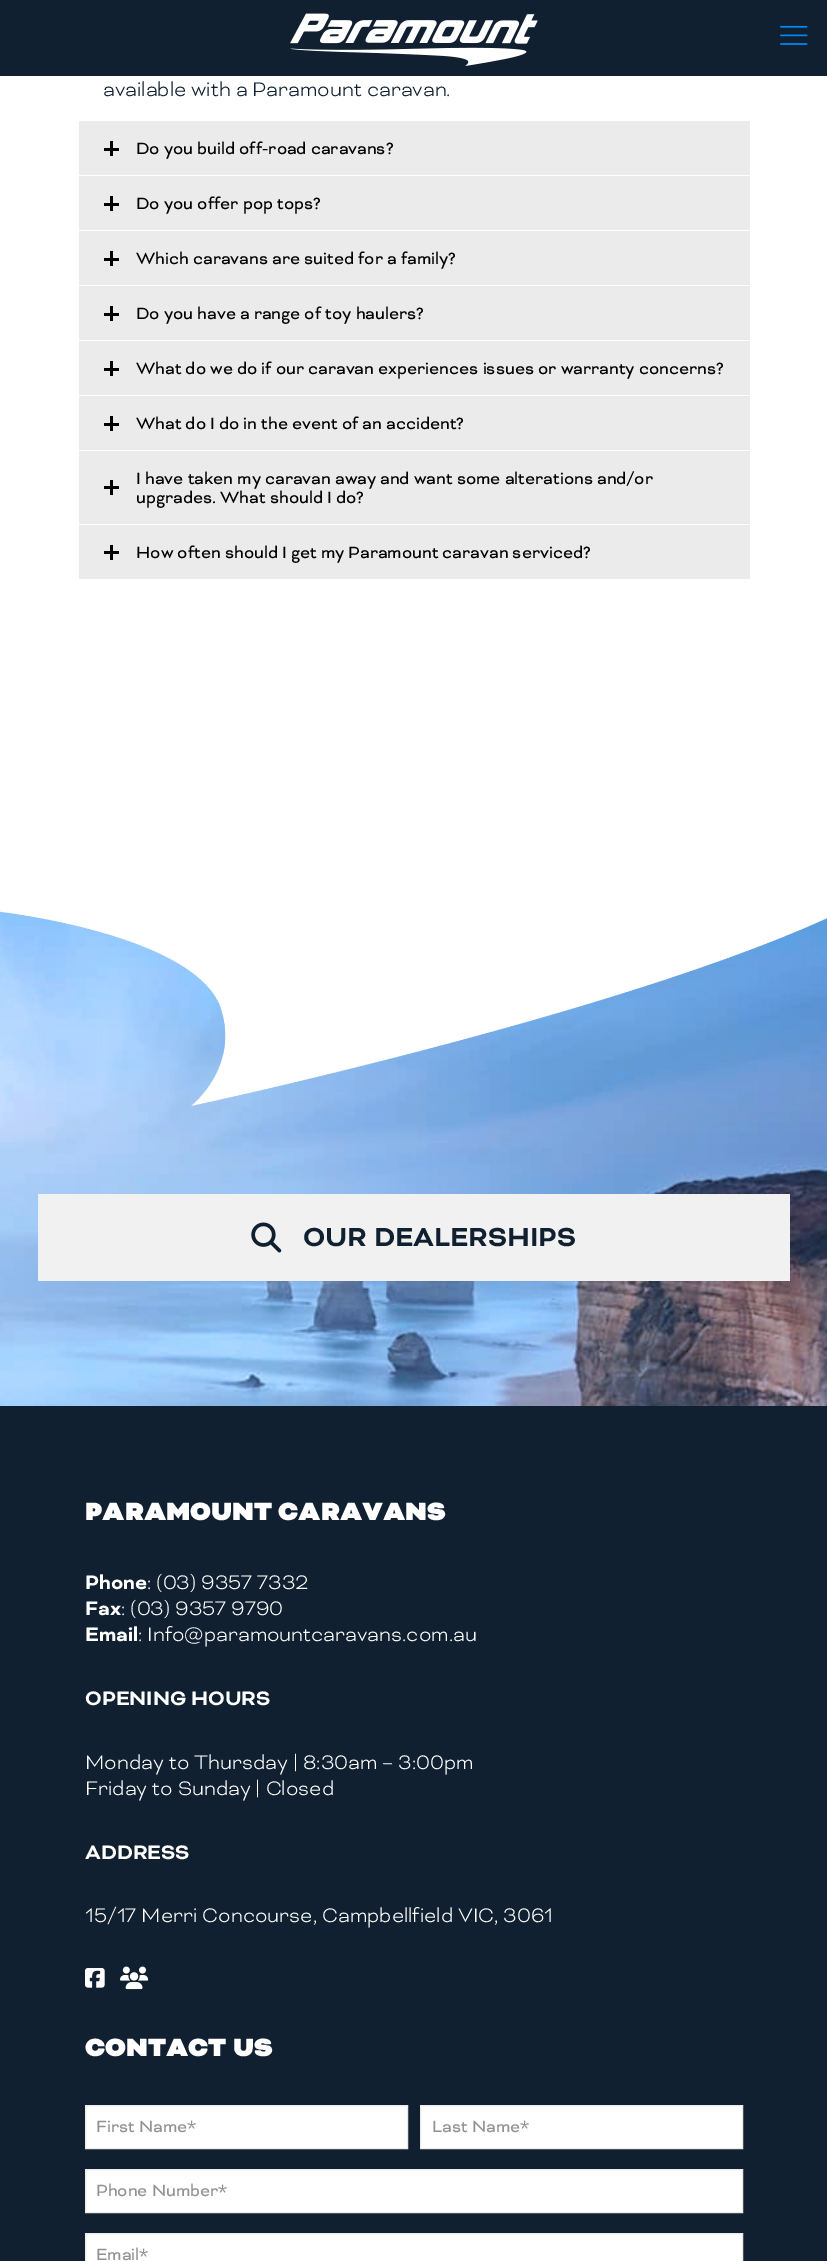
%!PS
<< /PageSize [827 2261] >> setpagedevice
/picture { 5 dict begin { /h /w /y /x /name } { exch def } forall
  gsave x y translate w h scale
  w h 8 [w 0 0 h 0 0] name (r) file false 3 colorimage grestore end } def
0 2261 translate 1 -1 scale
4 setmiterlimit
1 setgray
0 0 827 2261 rectfill
0.063 0.125 0.188 setrgbcolor
0 0 827 76 rectfill
(img1.rgb) 290 13 248 53 picture
(img2.rgb) 780 25 28 20 picture
/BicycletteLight-Light [22.5 0 0 -22.5 0 0] selectfont
103 96 moveto (available with a Paramount caravan.) show
0.922 setgray
79 121 671 54 rectfill
0 setgray
104 148 15 3 rectfill
110 141 3 15 rectfill
/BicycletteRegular-Regular [18.75 0 0 -18.75 0 0] selectfont
136 154 moveto (Do you build off-road caravans?) show
0.922 setgray
79 176 671 54 rectfill
0 setgray
104 203 15 3 rectfill
110 196 3 15 rectfill
136 209 moveto (Do you offer pop tops?) show
0.922 setgray
79 231 671 54 rectfill
0 setgray
104 258 15 3 rectfill
110 251 3 15 rectfill
136 264 moveto (Which caravans are suited for a family?) show
0.922 setgray
79 286 671 54 rectfill
0 setgray
104 313 15 3 rectfill
110 306 3 15 rectfill
136 319 moveto (Do you have a range of toy haulers?) show
0.922 setgray
79 341 671 54 rectfill
0 setgray
104 368 15 3 rectfill
110 361 3 15 rectfill
136 374 moveto (What do we do if our caravan experiences issues or warranty concerns?) show
0.922 setgray
79 396 671 54 rectfill
0 setgray
104 423 15 3 rectfill
110 416 3 15 rectfill
136 429 moveto (What do I do in the event of an accident?) show
0.922 setgray
79 451 671 73 rectfill
0 setgray
104 486 15 3 rectfill
110 480 3 15 rectfill
136 484 moveto (I have taken my caravan away and want some alterations and/or) show
136 503 moveto (upgrades. What should I do?) show
0.922 setgray
79 525 671 54 rectfill
0 setgray
104 551 15 3 rectfill
110 545 3 15 rectfill
136 558 moveto (How often should I get my Paramount caravan serviced?) show
(img3.rgb) 0 730 827 676 picture
(img4.rgb) 0 730 827 376 picture
0.945 setgray
38 1194 752 87 rectfill
(img5.rgb) 251 1222 31 31 picture
/BicycletteRegular-Bold [30 0 0 -30 0 0] selectfont
0.063 0.125 0.188 setrgbcolor
303 1246 moveto (OUR DEALERSHIPS) show
0 1406 827 855 rectfill
/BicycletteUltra-Black [28.75 0 0 -28.75 0 0] selectfont
1 setgray
85 1520 moveto (PARAMOUNT CARAVANS) show
/BicycletteRegular-Bold [22.5 0 0 -22.5 0 0] selectfont
85 1589 moveto (Phone) show
/BicycletteLight-Light [22.5 0 0 -22.5 0 0] selectfont
147 1589 moveto (: \(03\) 9357 7332) show
/BicycletteRegular-Bold [22.5 0 0 -22.5 0 0] selectfont
85 1615 moveto (Fax) show
/BicycletteLight-Light [22.5 0 0 -22.5 0 0] selectfont
121 1615 moveto (: \(03\) 9357 9790) show
/BicycletteRegular-Bold [22.5 0 0 -22.5 0 0] selectfont
85 1641 moveto (Email) show
/BicycletteLight-Light [22.5 0 0 -22.5 0 0] selectfont
138 1641 moveto (: Info@paramountcaravans.com.au) show
/BicycletteRegular-Bold [22.5 0 0 -22.5 0 0] selectfont
85 1705 moveto (OPENING HOURS) show
/BicycletteLight-Light [22.5 0 0 -22.5 0 0] selectfont
85 1769 moveto (Monday to Thursday | 8:30am – 3:00pm) show
85 1795 moveto (Friday to Sunday | Closed) show
/BicycletteRegular-Bold [22.5 0 0 -22.5 0 0] selectfont
85 1859 moveto (ADDRESS) show
/BicycletteLight-Light [22.5 0 0 -22.5 0 0] selectfont
85 1922 moveto (15/17 Merri Concourse, Campbellfield VIC, 3061) show
(img6.rgb) 85 1968 20 20 picture
(img7.rgb) 120 1966 29 24 picture
/BicycletteUltra-Black [28.75 0 0 -28.75 0 0] selectfont
85 2056 moveto (CONTACT US) show
newpath 85.5 2105.5 moveto 407.5 2105.5 lineto 407.5 2148.5 lineto 85.5 2148.5 lineto closepath gsave fill grestore
0.922 setgray
stroke
/BicycletteRegular-Regular [18.75 0 0 -18.75 0 0] selectfont
0.573 setgray
96 2132 moveto (First Name*) show
1 setgray
newpath 420.5 2105.5 moveto 742.5 2105.5 lineto 742.5 2148.5 lineto 420.5 2148.5 lineto closepath gsave fill grestore
0.922 setgray
stroke
0.573 setgray
432 2132 moveto (Last Name*) show
1 setgray
newpath 85.5 2169.5 moveto 742.5 2169.5 lineto 742.5 2212.5 lineto 85.5 2212.5 lineto closepath gsave fill grestore
0.922 setgray
stroke
0.573 setgray
96 2196 moveto (Phone Number*) show
1 setgray
newpath 85.5 2233.5 moveto 742.5 2233.5 lineto 742.5 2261.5 lineto 85.5 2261.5 lineto closepath gsave fill grestore
0.922 setgray
stroke
0.573 setgray
96 2260 moveto (Email*) show
showpage
